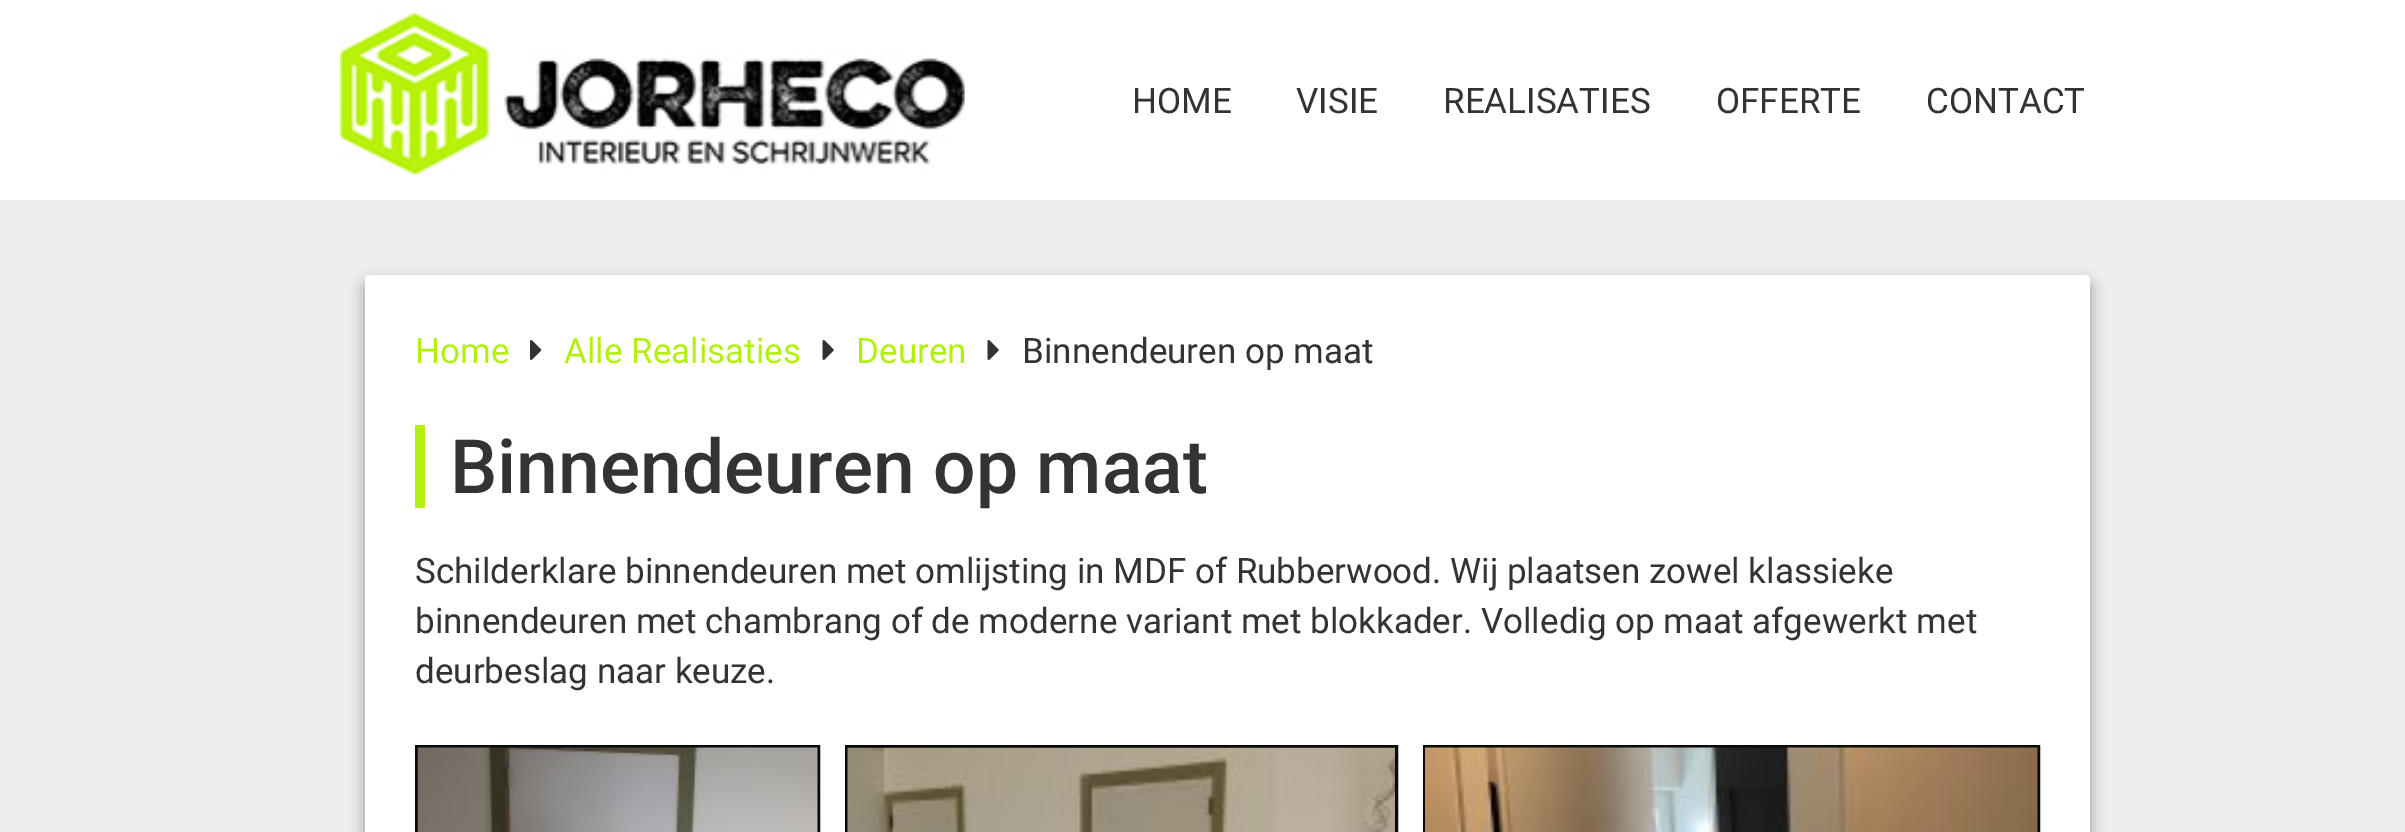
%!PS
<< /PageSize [2405 832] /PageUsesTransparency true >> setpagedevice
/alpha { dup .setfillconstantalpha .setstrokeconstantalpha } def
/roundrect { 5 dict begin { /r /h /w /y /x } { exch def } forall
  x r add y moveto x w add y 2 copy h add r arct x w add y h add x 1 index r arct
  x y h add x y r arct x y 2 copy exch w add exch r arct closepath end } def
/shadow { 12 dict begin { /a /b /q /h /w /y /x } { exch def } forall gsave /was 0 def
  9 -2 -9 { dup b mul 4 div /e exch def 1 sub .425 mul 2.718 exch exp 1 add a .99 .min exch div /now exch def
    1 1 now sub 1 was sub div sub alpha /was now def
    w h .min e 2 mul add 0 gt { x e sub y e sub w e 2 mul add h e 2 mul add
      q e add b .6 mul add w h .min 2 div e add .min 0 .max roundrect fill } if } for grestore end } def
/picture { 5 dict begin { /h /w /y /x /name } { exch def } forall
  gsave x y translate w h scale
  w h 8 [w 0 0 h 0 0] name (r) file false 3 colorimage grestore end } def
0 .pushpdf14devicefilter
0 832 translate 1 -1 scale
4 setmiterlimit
1 setgray
0 0 2405 832 rectfill
(img1.rgb) 340 12 625 163 picture
/Roboto-Regular [35 0 0 -35 0 0] selectfont
0.2 setgray
1132 113 moveto (HOME) show
1296 113 moveto (VISIE) show
1443 113 moveto (REALISATIES) show
1716 113 moveto (OFFERTE) show
1926 113 moveto (CONTACT) show
0.941 0.929 0.929 setrgbcolor
0 200 2405 632 rectfill
0 setgray
365 283 1725 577 5 7.5 0.23 shadow
365 283 1725 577 5 7.5 0.16 shadow
1 setgray
365 275 1725 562 5 roundrect fill
0.698 0.941 0.059 setrgbcolor
415 363 moveto (Home) show
(img2.rgb) 530 340 12 20 picture
564 363 moveto (Alle Realisaties) show
(img3.rgb) 822 340 12 20 picture
856 363 moveto (Deuren) show
(img3.rgb) 987 340 12 20 picture
0.2 setgray
1022 363 moveto (Binnendeuren op maat) show
0.698 0.941 0.063 setrgbcolor
415 425 10 83 rectfill
/Roboto-Medium [75 0 0 -75 0 0] selectfont
0.2 setgray
450 493 moveto (Binnendeuren op maat) show
/Roboto-Regular [35 0 0 -35 0 0] selectfont
415 583 moveto (Schilderklare binnendeuren met omlijsting in MDF of Rubberwood. Wij plaatsen zowel klassieke) show
415 633 moveto (binnendeuren met chambrang of de moderne variant met blokkader. Volledig op maat afgewerkt met) show
415 683 moveto (deurbeslag naar keuze.) show
0.039 setgray
3 setlinewidth
416.5 746.5 402 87 rectstroke
(img4.rgb) 417 747 401 85 picture
846.5 746.5 550 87 rectstroke
(img5.rgb) 847 747 548 85 picture
1424.5 746.5 614 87 rectstroke
(img6.rgb) 1425 747 613 85 picture
.poppdf14devicefilter showpage
